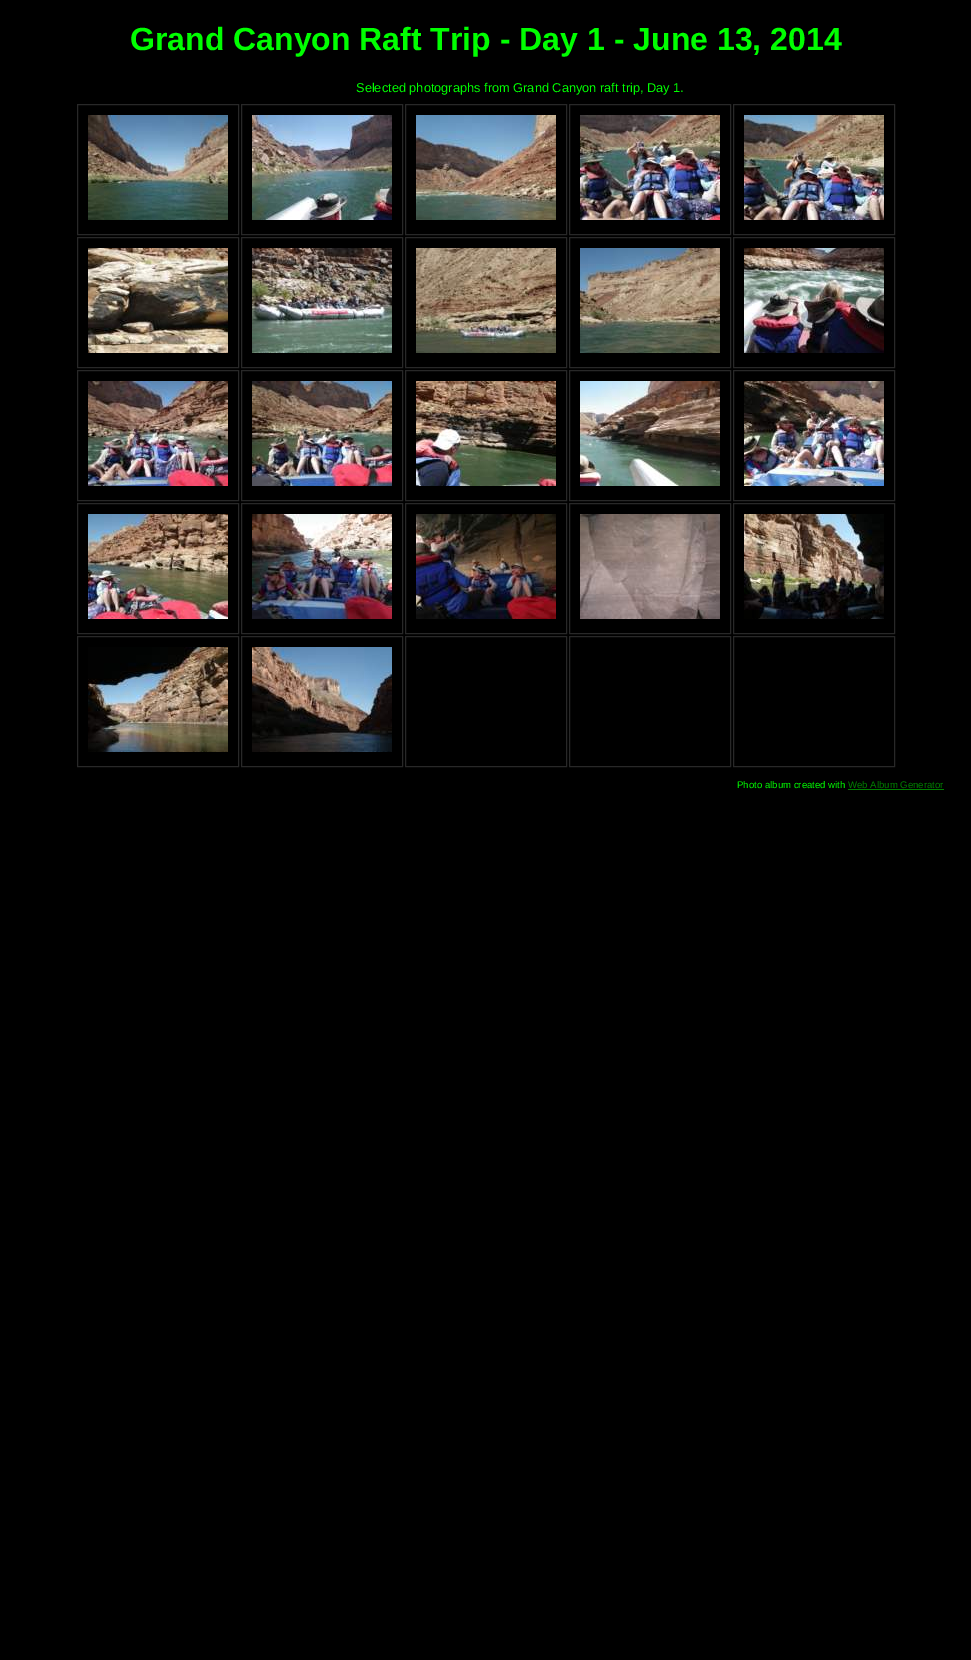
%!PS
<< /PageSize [971 1660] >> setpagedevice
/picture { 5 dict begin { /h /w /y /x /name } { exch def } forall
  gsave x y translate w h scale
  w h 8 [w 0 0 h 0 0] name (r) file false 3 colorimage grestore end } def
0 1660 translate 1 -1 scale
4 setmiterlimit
0 setgray
0 0 971 1660 rectfill
/LiberationSans-Bold [32 0 0 -32 0 0] selectfont
0 1 0 setrgbcolor
130 50 moveto (Grand Canyon Raft Trip - Day 1 - June 13, 2014) show
/LiberationSans-Regular [12.8 0 0 -12.8 0 0] selectfont
356 92 moveto (Selected photographs from Grand Canyon raft trip, Day 1.) show
0.157 setgray
77.5 104.5 161 130 rectstroke
(img1.rgb) 88 115 140 105 picture
241.5 104.5 161 130 rectstroke
(img2.rgb) 252 115 140 105 picture
405.5 104.5 161 130 rectstroke
(img3.rgb) 416 115 140 105 picture
569.5 104.5 161 130 rectstroke
(img4.rgb) 580 115 140 105 picture
733.5 104.5 161 130 rectstroke
(img5.rgb) 744 115 140 105 picture
77.5 237.5 161 130 rectstroke
(img6.rgb) 88 248 140 105 picture
241.5 237.5 161 130 rectstroke
(img7.rgb) 252 248 140 105 picture
405.5 237.5 161 130 rectstroke
(img8.rgb) 416 248 140 105 picture
569.5 237.5 161 130 rectstroke
(img9.rgb) 580 248 140 105 picture
733.5 237.5 161 130 rectstroke
(img10.rgb) 744 248 140 105 picture
77.5 370.5 161 130 rectstroke
(img11.rgb) 88 381 140 105 picture
241.5 370.5 161 130 rectstroke
(img12.rgb) 252 381 140 105 picture
405.5 370.5 161 130 rectstroke
(img13.rgb) 416 381 140 105 picture
569.5 370.5 161 130 rectstroke
(img14.rgb) 580 381 140 105 picture
733.5 370.5 161 130 rectstroke
(img15.rgb) 744 381 140 105 picture
77.5 503.5 161 130 rectstroke
(img16.rgb) 88 514 140 105 picture
241.5 503.5 161 130 rectstroke
(img17.rgb) 252 514 140 105 picture
405.5 503.5 161 130 rectstroke
(img18.rgb) 416 514 140 105 picture
569.5 503.5 161 130 rectstroke
(img19.rgb) 580 514 140 105 picture
733.5 503.5 161 130 rectstroke
(img20.rgb) 744 514 140 105 picture
77.5 636.5 161 130 rectstroke
(img21.rgb) 88 647 140 105 picture
241.5 636.5 161 130 rectstroke
(img22.rgb) 252 647 140 105 picture
405.5 636.5 161 130 rectstroke
569.5 636.5 161 130 rectstroke
733.5 636.5 161 130 rectstroke
/LiberationSans-Regular [9.6 0 0 -9.6 0 0] selectfont
0 1 0 setrgbcolor
737 788 moveto (Photo album created with) show
0 0.502 0 setrgbcolor
848 788 moveto (Web Album Generator) show
848 789 96 1 rectfill
showpage
